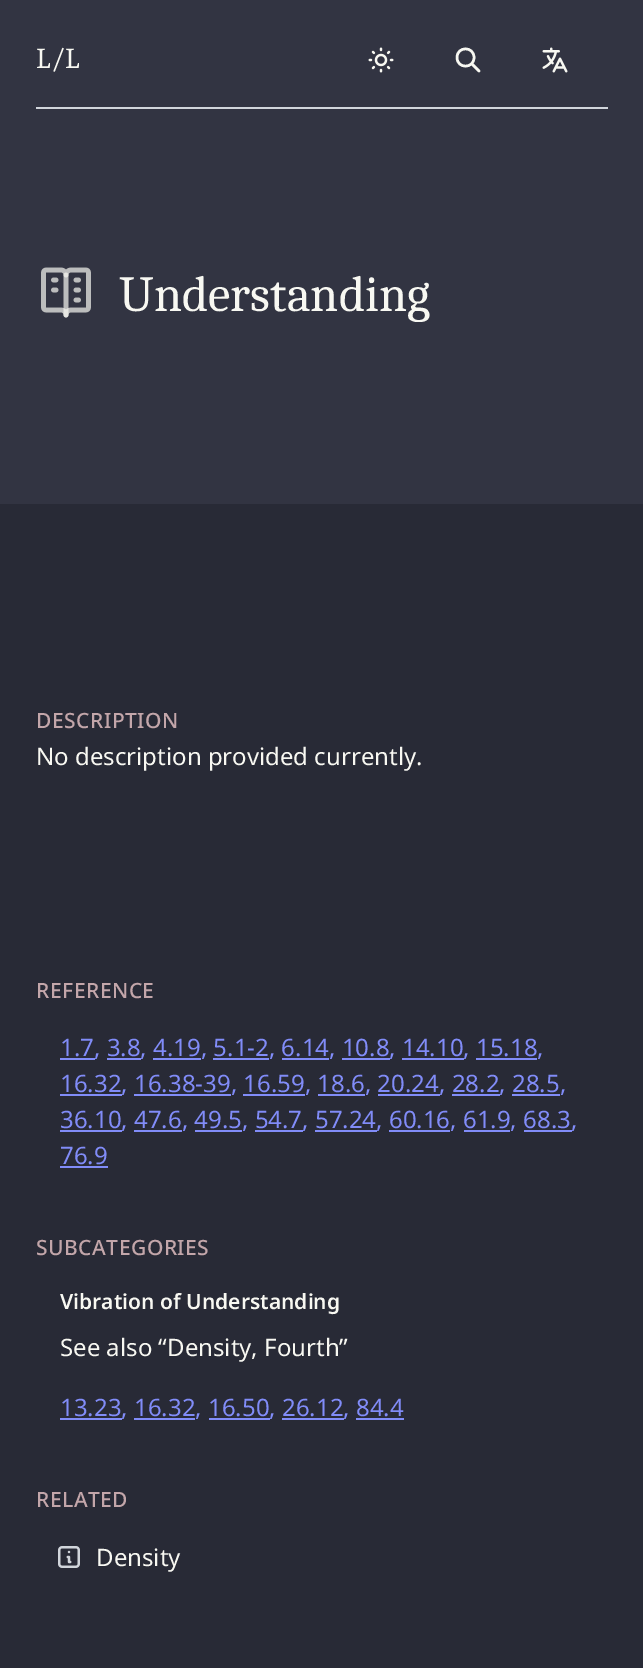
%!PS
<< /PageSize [643 1668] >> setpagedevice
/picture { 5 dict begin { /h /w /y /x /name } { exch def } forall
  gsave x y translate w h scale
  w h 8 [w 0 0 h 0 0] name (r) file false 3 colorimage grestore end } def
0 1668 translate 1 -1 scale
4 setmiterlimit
0.157 0.165 0.212 setrgbcolor
0 0 643 1668 rectfill
0.196 0.204 0.259 setrgbcolor
0 0 643 504 rectfill
0.82 0.835 0.859 setrgbcolor
36 107 572 2 rectfill
/Caladea-Regular [29 0 0 -29 0 0] selectfont
0.973 0.973 0.949 setrgbcolor
36 68 moveto (L/L) show
(img1.rgb) 368 47 26 26 picture
2.5 setlinewidth
1 setlinecap
1 setlinejoin
newpath 479 71 moveto 472 64 lineto 474 57.5 moveto 474 69 457 69 457 57.5 curveto 457 46 474 46 474 57.5 curveto closepath stroke
(img2.rgb) 542 47 26 26 picture
(img3.rgb) 41 267 50 51 picture
/Caladea-Regular [50.5 0 0 -50.5 0 0] selectfont
119 311 moveto (Understanding) show
/NotoSans-Medium [21 0 0 -21 0 0] selectfont
0.765 0.651 0.667 setrgbcolor
36 728 moveto 0.5 0 (DESCRIPTION) ashow
/NotoSans-Regular [24 0 0 -24 0 0] selectfont
0.973 0.973 0.949 setrgbcolor
36 765 moveto (No description provided currently.) show
/NotoSans-Medium [21 0 0 -21 0 0] selectfont
0.765 0.651 0.667 setrgbcolor
36 998 moveto 0.5 0 (REFERENCE) ashow
0.506 0.549 0.973 setrgbcolor
60 1058 35 2 rectfill
/NotoSans-Regular [24 0 0 -24 0 0] selectfont
60 1056 moveto (1.7, 3.8, 4.19, 5.1-2, 6.14, 10.8, 14.10, 15.18,) show
107 1058 34 2 rectfill
153 1058 48 2 rectfill
213 1058 56 2 rectfill
282 1058 47 2 rectfill
342 1058 48 2 rectfill
402 1058 62 2 rectfill
476 1058 61 2 rectfill
60 1094 62 2 rectfill
60 1092 moveto (16.32, 16.38-39, 16.59, 18.6, 20.24) show
378 1094 62 2 rectfill
439 1092 moveto (, 28.2, 28.5,) show
134 1094 97 2 rectfill
243 1094 62 2 rectfill
318 1094 47 2 rectfill
452 1094 48 2 rectfill
512 1094 48 2 rectfill
60 1130 62 2 rectfill
60 1128 moveto (36.10, 47.6, 49.5, 54.7, 57.24, 60.16, 61.9, 68.3) show
524 1130 48 2 rectfill
571 1128 moveto (,) show
134 1130 48 2 rectfill
195 1130 47 2 rectfill
255 1130 48 2 rectfill
315 1130 62 2 rectfill
389 1130 61 2 rectfill
464 1130 46 2 rectfill
60 1164 moveto (76.9) show
60 1166 48 2 rectfill
/NotoSans-Medium [21 0 0 -21 0 0] selectfont
0.765 0.651 0.667 setrgbcolor
36 1255 moveto 0.5 0 (SUBCATEGORIES) ashow
/NotoSans-SemiBold [21 0 0 -21 0 0] selectfont
0.973 0.973 0.949 setrgbcolor
60 1309 moveto (Vibration of Understanding) show
/NotoSans-Regular [24 0 0 -24 0 0] selectfont
60 1356 moveto (See also “Density, Fourth”) show
0.506 0.549 0.973 setrgbcolor
60 1418 62 2 rectfill
60 1416 moveto (13.23, 16.32, 16.50, 26.12, 84.4) show
134 1418 61 2 rectfill
209 1418 61 2 rectfill
282 1418 62 2 rectfill
356 1418 48 2 rectfill
/NotoSans-Medium [21 0 0 -21 0 0] selectfont
0.765 0.651 0.667 setrgbcolor
36 1507 moveto 0.5 0 (RELATED) ashow
(img4.rgb) 58 1546 22 22 picture
/NotoSans-Regular [24 0 0 -24 0 0] selectfont
0.973 0.973 0.949 setrgbcolor
96 1566 moveto (Density) show
showpage
